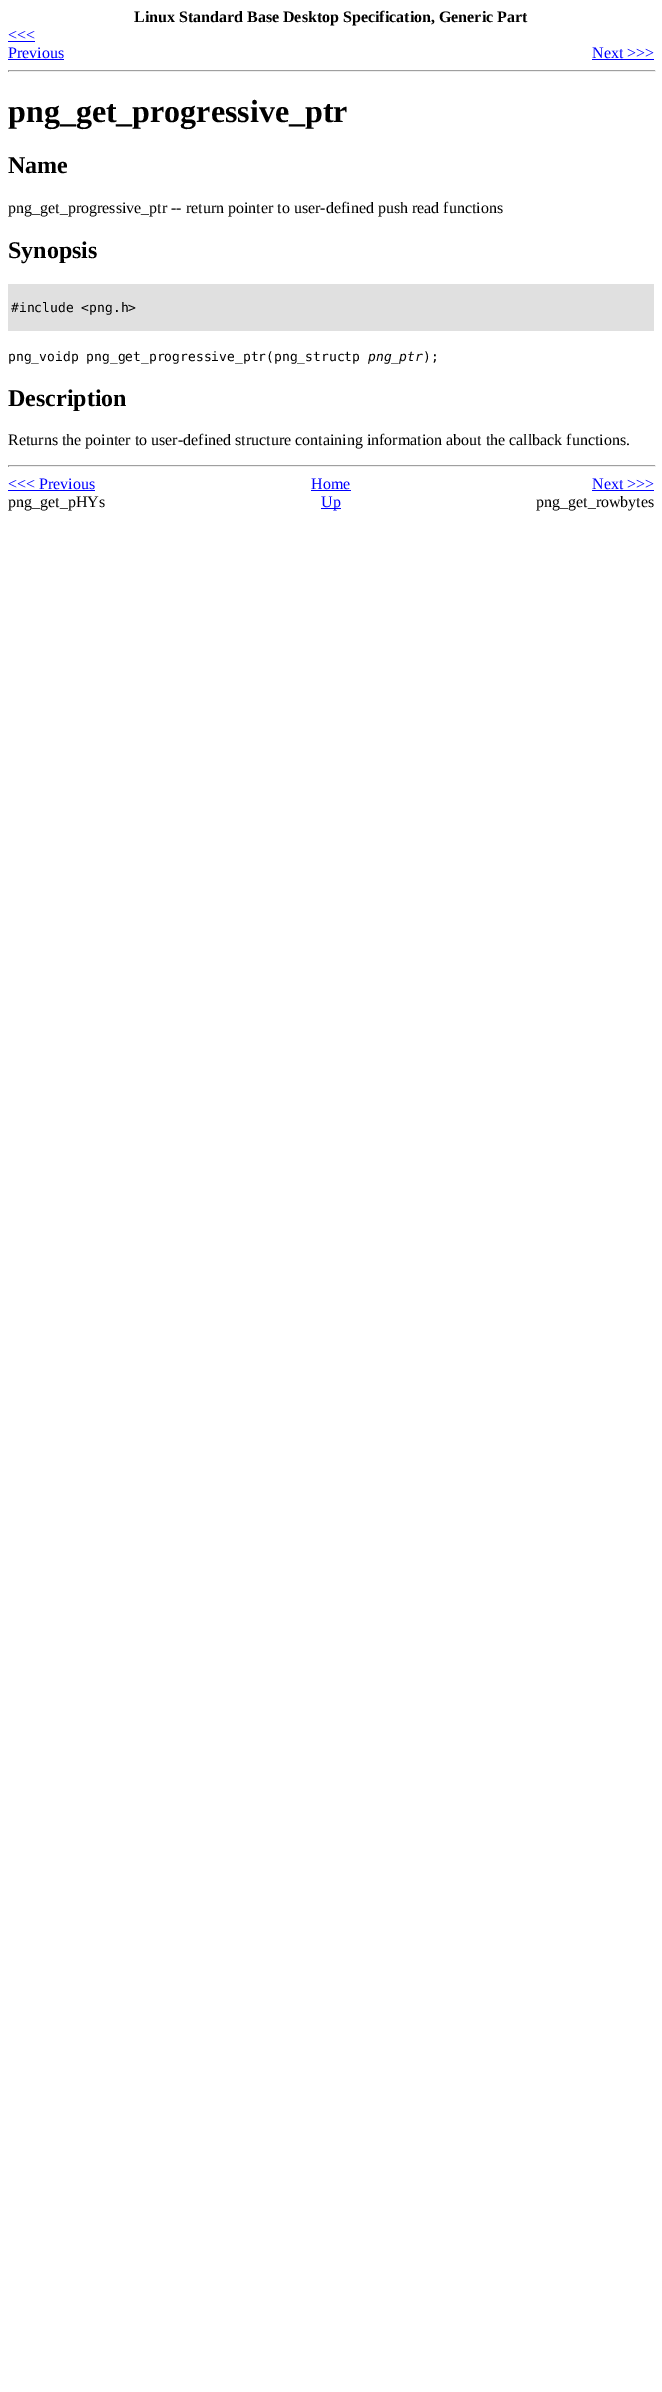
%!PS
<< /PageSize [662 2392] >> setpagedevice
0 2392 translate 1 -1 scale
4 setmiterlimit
1 setgray
0 0 662 2392 rectfill
/LiberationSerif-Bold [16 0 0 -16 0 0] selectfont
0 setgray
134 22 moveto (Linux Standard Base Desktop Specification, Generic Part) show
/LiberationSerif-Regular [16 0 0 -16 0 0] selectfont
0 0 1 setrgbcolor
8 40 moveto (<<<) show
8 41 27 1 rectfill
8 58 moveto (Previous) show
8 59 56 1 rectfill
592 58 moveto (Next >>>) show
592 59 62 1 rectfill
0.624 setgray
8 70 648 1 rectfill
0.933 setgray
655 70 1 2 rectfill
8 71 648 1 rectfill
0.624 setgray
8 70 1 2 rectfill
/LiberationSerif-Bold [32 0 0 -32 0 0] selectfont
0 setgray
8 122 moveto (png_get_progressive_ptr) show
/LiberationSerif-Bold [24 0 0 -24 0 0] selectfont
8 173 moveto (Name) show
/LiberationSerif-Regular [16 0 0 -16 0 0] selectfont
8 213 moveto (png_get_progressive_ptr -- return pointer to user-defined push read functions) show
/LiberationSerif-Bold [24 0 0 -24 0 0] selectfont
8 258 moveto (Synopsis) show
0.878 setgray
8 284 646 47 rectfill
/DejaVuSansMono-Regular [13 0 0 -13 0 0] selectfont
0 setgray
11 312 moveto (#include <png.h>) show
8 361 moveto (png_voidp png_get_progressive_ptr\(png_structp) show
/DejaVuSansMono-Italic [13 0 0 -13 0 0] selectfont
368 361 moveto (png_ptr) show
/DejaVuSansMono-Regular [13 0 0 -13 0 0] selectfont
423 361 moveto (\);) show
/LiberationSerif-Bold [24 0 0 -24 0 0] selectfont
8 406 moveto (Description) show
/LiberationSerif-Regular [16 0 0 -16 0 0] selectfont
8 445 moveto (Returns the pointer to user-defined structure containing information about the callback functions.) show
0.624 setgray
8 465 648 1 rectfill
0.933 setgray
655 465 1 2 rectfill
8 466 648 1 rectfill
0.624 setgray
8 465 1 2 rectfill
0 0 1 setrgbcolor
8 489 moveto (<<< Previous) show
8 490 87 1 rectfill
311 489 moveto (Home) show
311 490 40 1 rectfill
592 489 moveto (Next >>>) show
592 490 62 1 rectfill
0 setgray
8 507 moveto (png_get_pHYs) show
0 0 1 setrgbcolor
321 508 20 1 rectfill
321 507 moveto (Up) show
0 setgray
536 507 moveto (png_get_rowbytes) show
showpage
